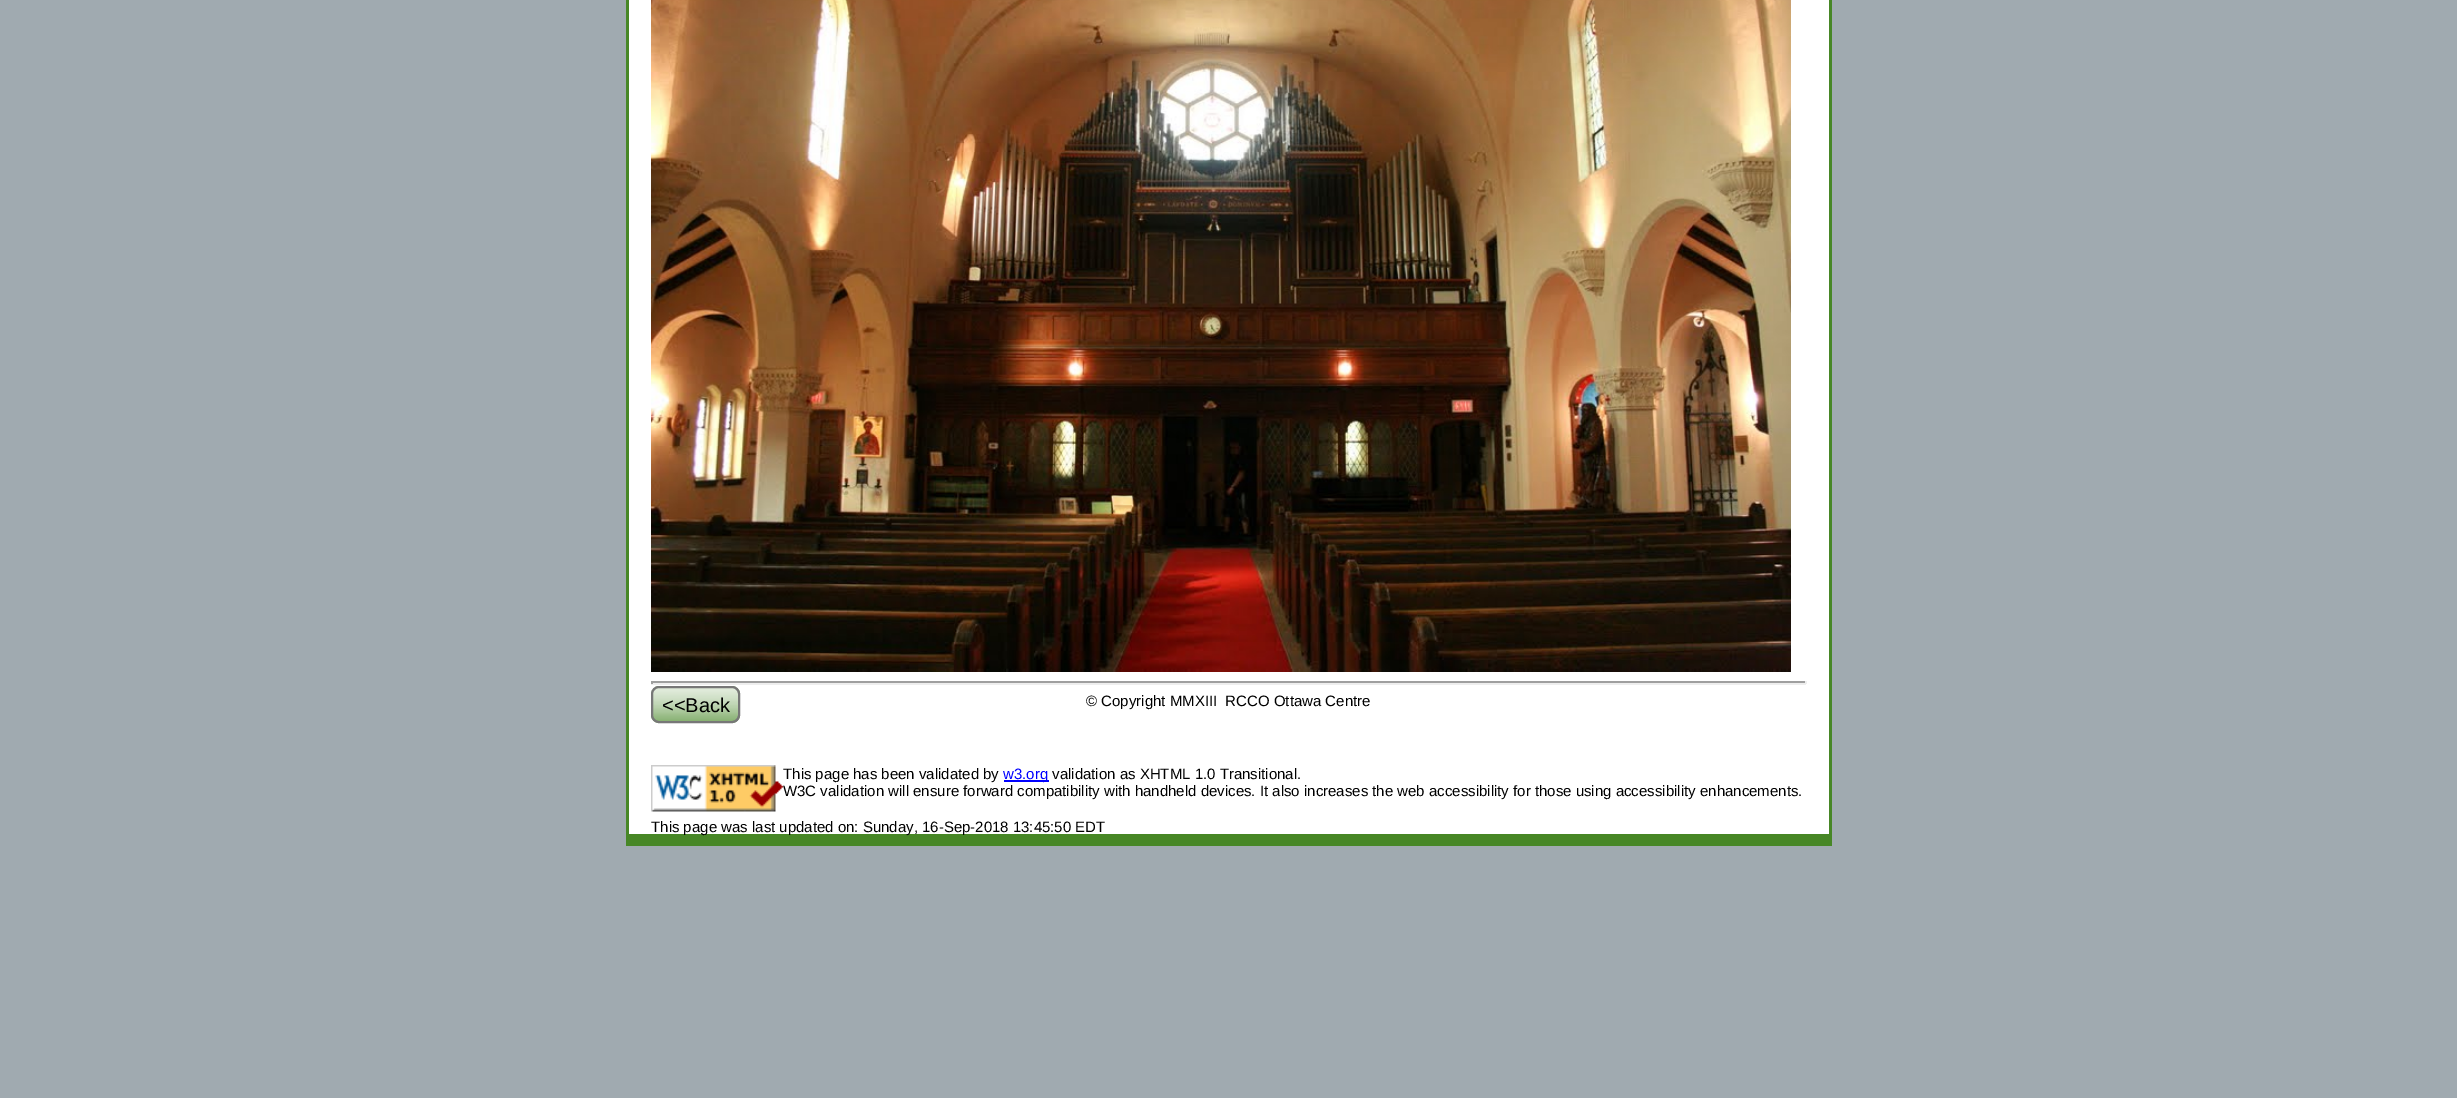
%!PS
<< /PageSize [2457 1098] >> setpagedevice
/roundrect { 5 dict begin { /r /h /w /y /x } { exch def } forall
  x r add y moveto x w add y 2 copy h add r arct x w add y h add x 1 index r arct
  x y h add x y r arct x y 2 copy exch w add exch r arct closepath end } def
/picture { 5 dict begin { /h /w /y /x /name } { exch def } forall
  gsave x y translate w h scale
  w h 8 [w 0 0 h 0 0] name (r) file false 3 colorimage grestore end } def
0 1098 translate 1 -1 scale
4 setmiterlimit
0.627 0.667 0.69 setrgbcolor
0 0 2457 1098 rectfill
1 setgray
629 0 1200 834 rectfill
0.278 0.529 0.149 setrgbcolor
1829 0 3 834 rectfill
629 834 1203 12 rectfill
626 0 3 846 rectfill
(img1.rgb) 651 0 1140 672 picture
0.624 setgray
651 681 1155 2 rectfill
0.933 setgray
1805 681 2 3 rectfill
651 683 1155 2 rectfill
0.624 setgray
651 681 2 3 rectfill
0.278 0.529 0.149 setrgbcolor
651 686 89 37 8 roundrect fill
(img2.rgb) 651 686 89 37 picture
0.467 setgray
2 setlinewidth
652 687 87 35 7 roundrect stroke
/LiberationSans-Regular [20 0 0 -20 0 0] selectfont
0 setgray
662 712 moveto (<<Back) show
/LiberationSans-Regular [15 0 0 -15 0 0] selectfont
1086 706 moveto (© Copyright MMXIII  RCCO Ottawa Centre) show
(img3.rgb) 651 765 132 47 picture
783 779 moveto (This page has been validated by) show
0 0 1 setrgbcolor
1004 780 45 2 rectfill
1003 779 moveto (w3.org) show
0 setgray
1052 779 moveto (validation as XHTML 1.0 Transitional.) show
783 796 moveto (W3C validation will ensure forward compatibility with handheld devices. It also increases the web accessibility for those using accessibility enhancements.) show
651 832 moveto (This page was last updated on: Sunday, 16-Sep-2018 13:45:50 EDT) show
showpage
